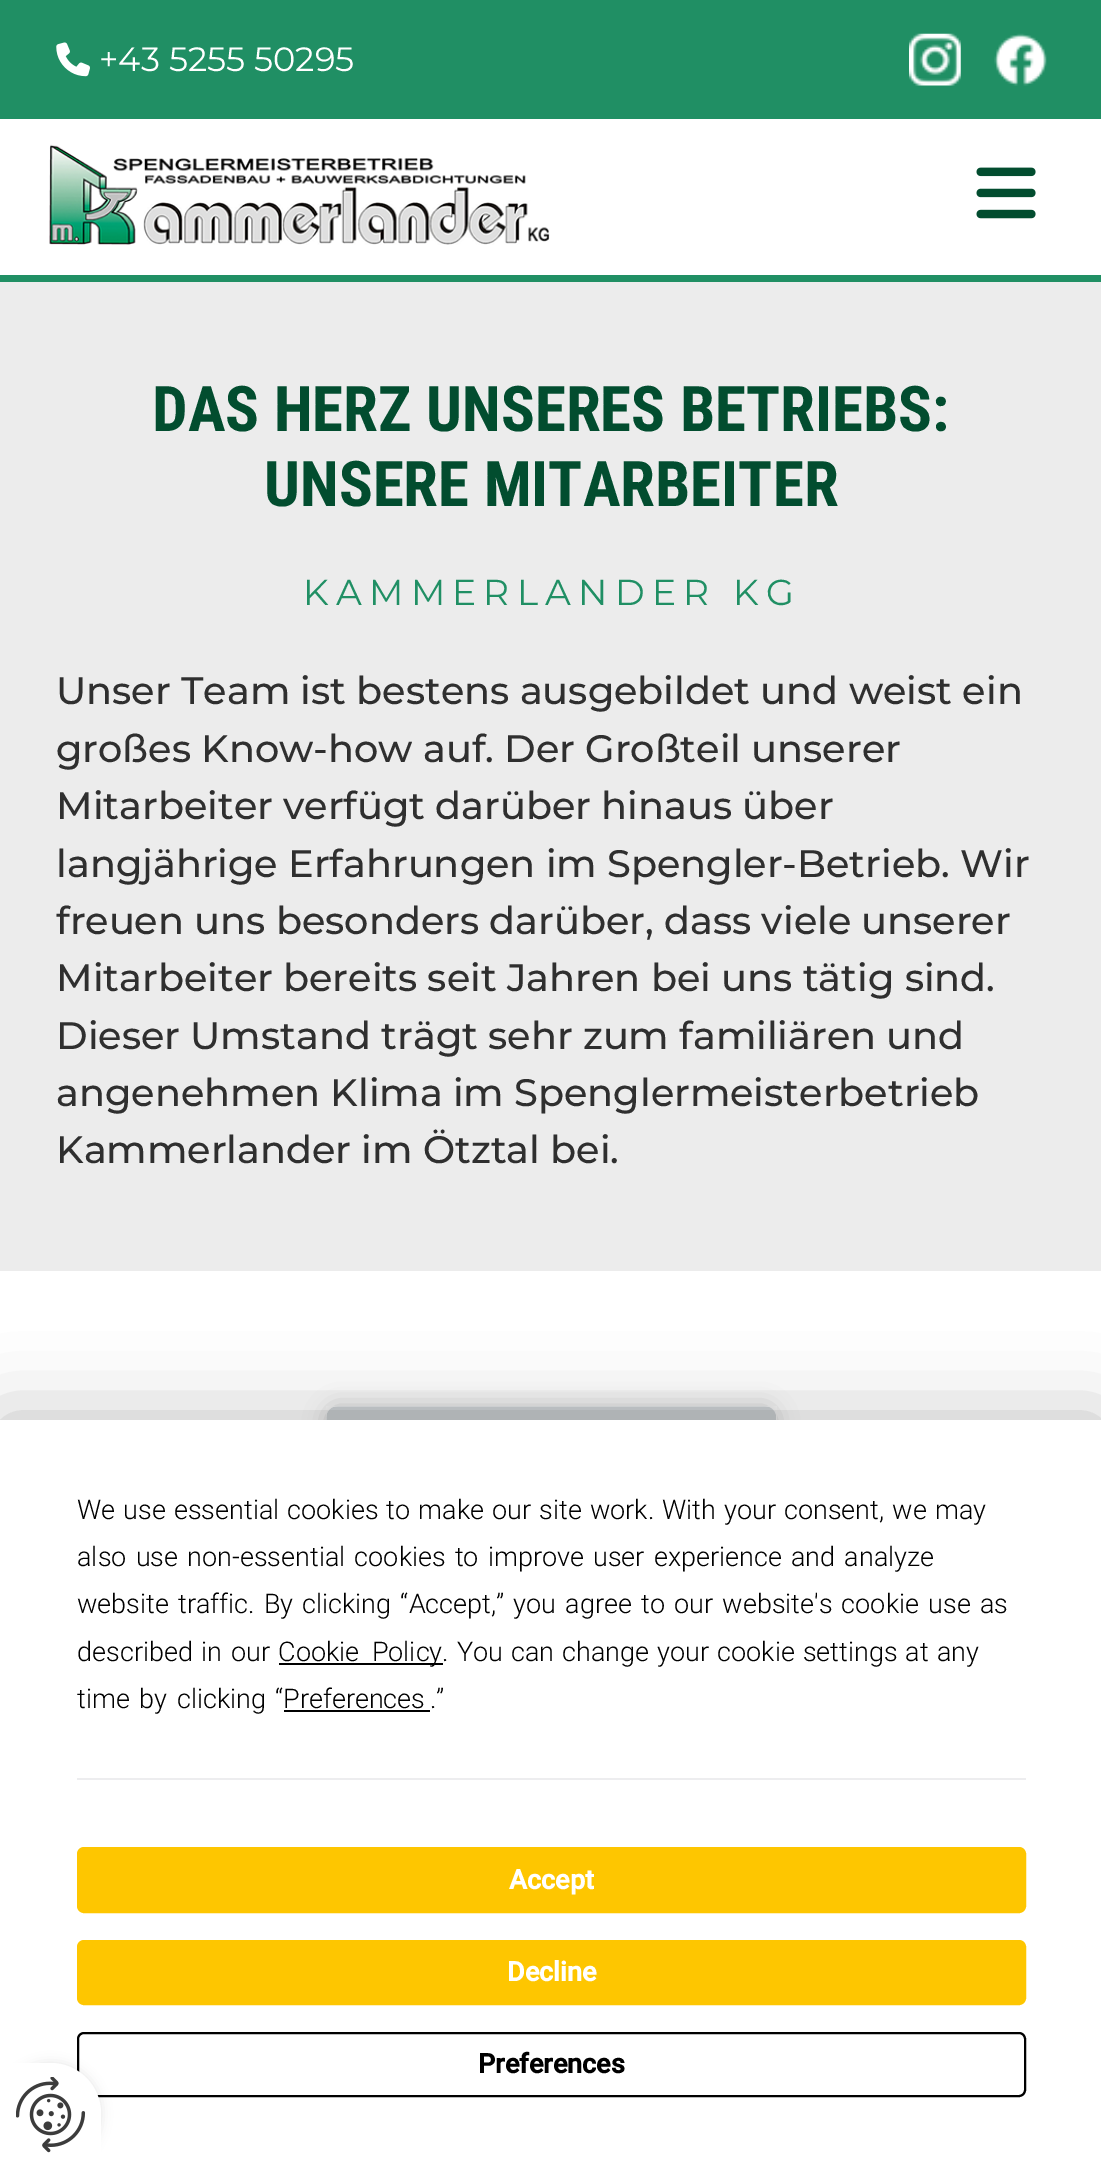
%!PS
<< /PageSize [1101 2164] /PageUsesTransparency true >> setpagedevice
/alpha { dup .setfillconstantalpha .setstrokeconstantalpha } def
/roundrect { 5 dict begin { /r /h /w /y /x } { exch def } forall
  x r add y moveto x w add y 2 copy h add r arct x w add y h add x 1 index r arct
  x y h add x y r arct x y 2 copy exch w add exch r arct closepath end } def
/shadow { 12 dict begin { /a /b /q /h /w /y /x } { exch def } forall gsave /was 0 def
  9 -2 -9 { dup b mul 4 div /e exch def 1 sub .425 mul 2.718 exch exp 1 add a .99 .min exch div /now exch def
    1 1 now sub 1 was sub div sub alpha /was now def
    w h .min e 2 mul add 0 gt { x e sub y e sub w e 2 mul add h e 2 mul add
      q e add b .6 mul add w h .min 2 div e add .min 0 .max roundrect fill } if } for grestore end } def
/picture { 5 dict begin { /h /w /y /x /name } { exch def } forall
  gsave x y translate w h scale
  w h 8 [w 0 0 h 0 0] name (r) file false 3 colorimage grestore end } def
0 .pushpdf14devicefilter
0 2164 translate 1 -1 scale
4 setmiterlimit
0.925 setgray
0 0 1101 2164 rectfill
0.125 0.561 0.392 setrgbcolor
0 0 1101 119 rectfill
(img1.rgb) 56 42 34 35 picture
/Montserrat-Thin [33.75 0 0 -33.75 0 0] selectfont
1 setgray
99 71 moveto (+43 5255 50295) show
(img2.rgb) 909 33 52 53 picture
(img3.rgb) 994 33 53 53 picture
0 119 1101 156 rectfill
0.125 0.561 0.392 setrgbcolor
0 275 1101 7 rectfill
(img4.rgb) 49 144 501 101 picture
(img5.rgb) 976 167 60 52 picture
/RobotoCondensed-Bold [63 0 0 -63 0 0] selectfont
0.008 0.302 0.184 setrgbcolor
152 431 moveto (DAS HERZ UNSERES BETRIEBS:) show
264 506 moveto (UNSERE MITARBEITER) show
/Montserrat-Thin [36 0 0 -36 0 0] selectfont
0.125 0.561 0.392 setrgbcolor
303 605 moveto 7.25 0 (KAMMERLANDER KG) ashow
/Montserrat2-Thin [38.25 0 0 -38.25 0 0] selectfont
0.184 setgray
56 704 moveto (Unser Team ist bestens ausgebildet und weist ein) show
56 762 moveto (großes Know-how auf. Der Großteil unserer) show
56 819 moveto (Mitarbeiter verfügt darüber hinaus über) show
56 877 moveto (langjährige Erfahrungen im Spengler-Betrieb. Wir) show
56 934 moveto (freuen uns besonders darüber, dass viele unserer) show
56 991 moveto (Mitarbeiter bereits seit Jahren bei uns tätig sind.) show
56 1049 moveto (Dieser Umstand trägt sehr zum familiären und) show
56 1106 moveto (angenehmen Klima im Spenglermeisterbetrieb) show
56 1163 moveto (Kammerlander im Ötztal bei.) show
1 setgray
0 1271 1101 149 rectfill
0 setgray
326 1406 450 675 11 11 0.2 shadow
(img6.rgb) 326 1406 451 14 picture
0 1420 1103 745 0 39.5 0.25 shadow
1 setgray
0 1420 1101 744 rectfill
/Roboto-Light [27 0 0 -27 0 0] selectfont
0 setgray
77 1519 moveto 1.5 0 32 (We use essential cookies to make our site work. With your consent, we may) widthshow
77 1566 moveto 2.6 0 32 (also use non-essential cookies to improve user experience and analyze) widthshow
77 1613 moveto 2.6 0 32 (website traffic. By clicking “Accept,” you agree to our website's cookie use as) widthshow
77 1661 moveto 2 0 32 (described in our) widthshow
279 1663 164 2 rectfill
278 1661 moveto 6 0 32 (Cookie Policy) widthshow
442 1661 moveto 1.5 0 32 (. You can change your cookie settings at any) widthshow
77 1708 moveto 3 0 32 (time by clicking “) widthshow
283 1708 moveto (Preferences) show
284 1710 146 2 rectfill
430 1708 moveto (.”) show
0.929 0.929 0.937 setrgbcolor
77 1778 949 2 rectfill
0.996 0.776 0 setrgbcolor
78 1848 947 64 6 roundrect gsave fill grestore
2 setlinewidth
stroke
/Roboto-Bold [27 0 0 -27 0 0] selectfont
1 setgray
509 1889 moveto (Accept) show
0.996 0.776 0 setrgbcolor
78 1941 947 63 6 roundrect gsave fill grestore
stroke
1 setgray
507 1981 moveto (Decline) show
0 setgray
78 2033 947 63 6 roundrect stroke
478 2073 moveto (Preferences) show
0 2063 101 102 50.5 5.5 0.1 shadow
1 setgray
newpath 0 2063 moveto 50.5 2063 lineto 78.5 2063 101 2085.5 101 2113.5 curveto 101 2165 lineto 0 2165 lineto closepath fill
(img7.rgb) 16 2077 70 76 picture
.poppdf14devicefilter showpage
